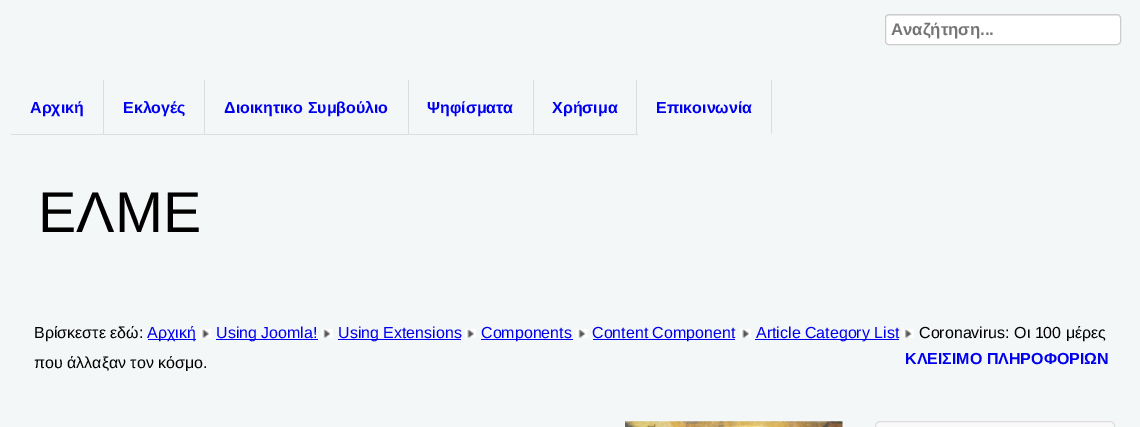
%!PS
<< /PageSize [1140 427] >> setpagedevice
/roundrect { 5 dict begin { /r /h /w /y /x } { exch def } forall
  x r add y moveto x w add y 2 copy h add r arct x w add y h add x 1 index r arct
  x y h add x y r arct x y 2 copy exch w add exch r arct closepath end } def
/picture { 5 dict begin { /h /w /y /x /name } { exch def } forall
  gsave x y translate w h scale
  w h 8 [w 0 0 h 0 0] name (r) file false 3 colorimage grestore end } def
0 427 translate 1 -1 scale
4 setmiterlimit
0.957 0.969 0.969 setrgbcolor
0 0 1140 427 rectfill
1 setgray
885 14 236 31 4 roundrect fill
0.925 setgray
newpath 889 16 moveto 1118 16 lineto 1119 16 1120 17 1120 19 curveto 1120 17 1120 15 1118 15 curveto 888 15 lineto 886 15 886 17 886 19 curveto 886 17 887 16 889 16 curveto closepath fill
0.8 setgray
885.5 14.5 235 30 3.5 roundrect stroke
/LiberationSans-Bold [16.75 0 0 -16.75 0 0] selectfont
0.459 setgray
891 35 moveto (Αναζήτηση...) show
0.867 setgray
103 80 1 55 rectfill
11 134 93 1 rectfill
/LiberationSans-Bold [16 0 0 -16 0 0] selectfont
0 0 0.933 setrgbcolor
30 113 moveto (Αρχική) show
0.867 setgray
204 80 1 55 rectfill
104 134 101 1 rectfill
0 0 0.933 setrgbcolor
123 113 moveto (Εκλογές) show
0.867 setgray
408 80 1 55 rectfill
205 134 204 1 rectfill
0 0 0.933 setrgbcolor
224 113 moveto (Διοικητικο Συμβούλιο) show
0.867 setgray
533 80 1 55 rectfill
409 134 125 1 rectfill
0 0 0.933 setrgbcolor
427 113 moveto (Ψηφίσματα) show
0.867 setgray
636 80 1 55 rectfill
534 134 104 1 rectfill
0 0 0.933 setrgbcolor
552 113 moveto (Χρήσιμα) show
0.867 setgray
771 80 1 54 rectfill
0 0 0.933 setrgbcolor
656 113 moveto (Επικοινωνία) show
/LiberationSans-Regular [57.5 0 0 -57.5 0 0] selectfont
0 setgray
38 232 moveto (ΕΛΜΕ) show
/LiberationSans-Regular [16 0 0 -16 0 0] selectfont
34 338 moveto (Βρίσκεστε εδώ:) show
0 0 0.933 setrgbcolor
148 339 48 1 rectfill
147 338 moveto (Αρχική) show
(img1.rgb) 200 329 11 9 picture
216 339 102 1 rectfill
216 338 moveto (Using Joomla!) show
(img2.rgb) 321 329 12 9 picture
338 339 123 1 rectfill
338 338 moveto (Using Extensions) show
(img3.rgb) 465 329 11 9 picture
481 339 92 1 rectfill
481 338 moveto (Components) show
(img2.rgb) 576 329 12 9 picture
593 339 142 1 rectfill
592 338 moveto (Content Component) show
(img3.rgb) 740 329 11 9 picture
755 339 144 1 rectfill
756 338 moveto (Article Category List) show
(img4.rgb) 902 329 12 9 picture
0 setgray
919 338 moveto (Coronavirus: Οι 100 μέρες) show
34 368 moveto (που άλλαξαν τον κόσμο.) show
/LiberationSans-Bold [16 0 0 -16 0 0] selectfont
0 0 0.933 setrgbcolor
905 364 moveto (ΚΛΕΙΣΙΜΟ ΠΛΗΡΟΦΟΡΙΩΝ) show
(img5.rgb) 625 421 218 6 picture
0.976 setgray
875.5 421.5 239 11 4.5 roundrect gsave fill grestore
0.867 setgray
stroke
showpage
